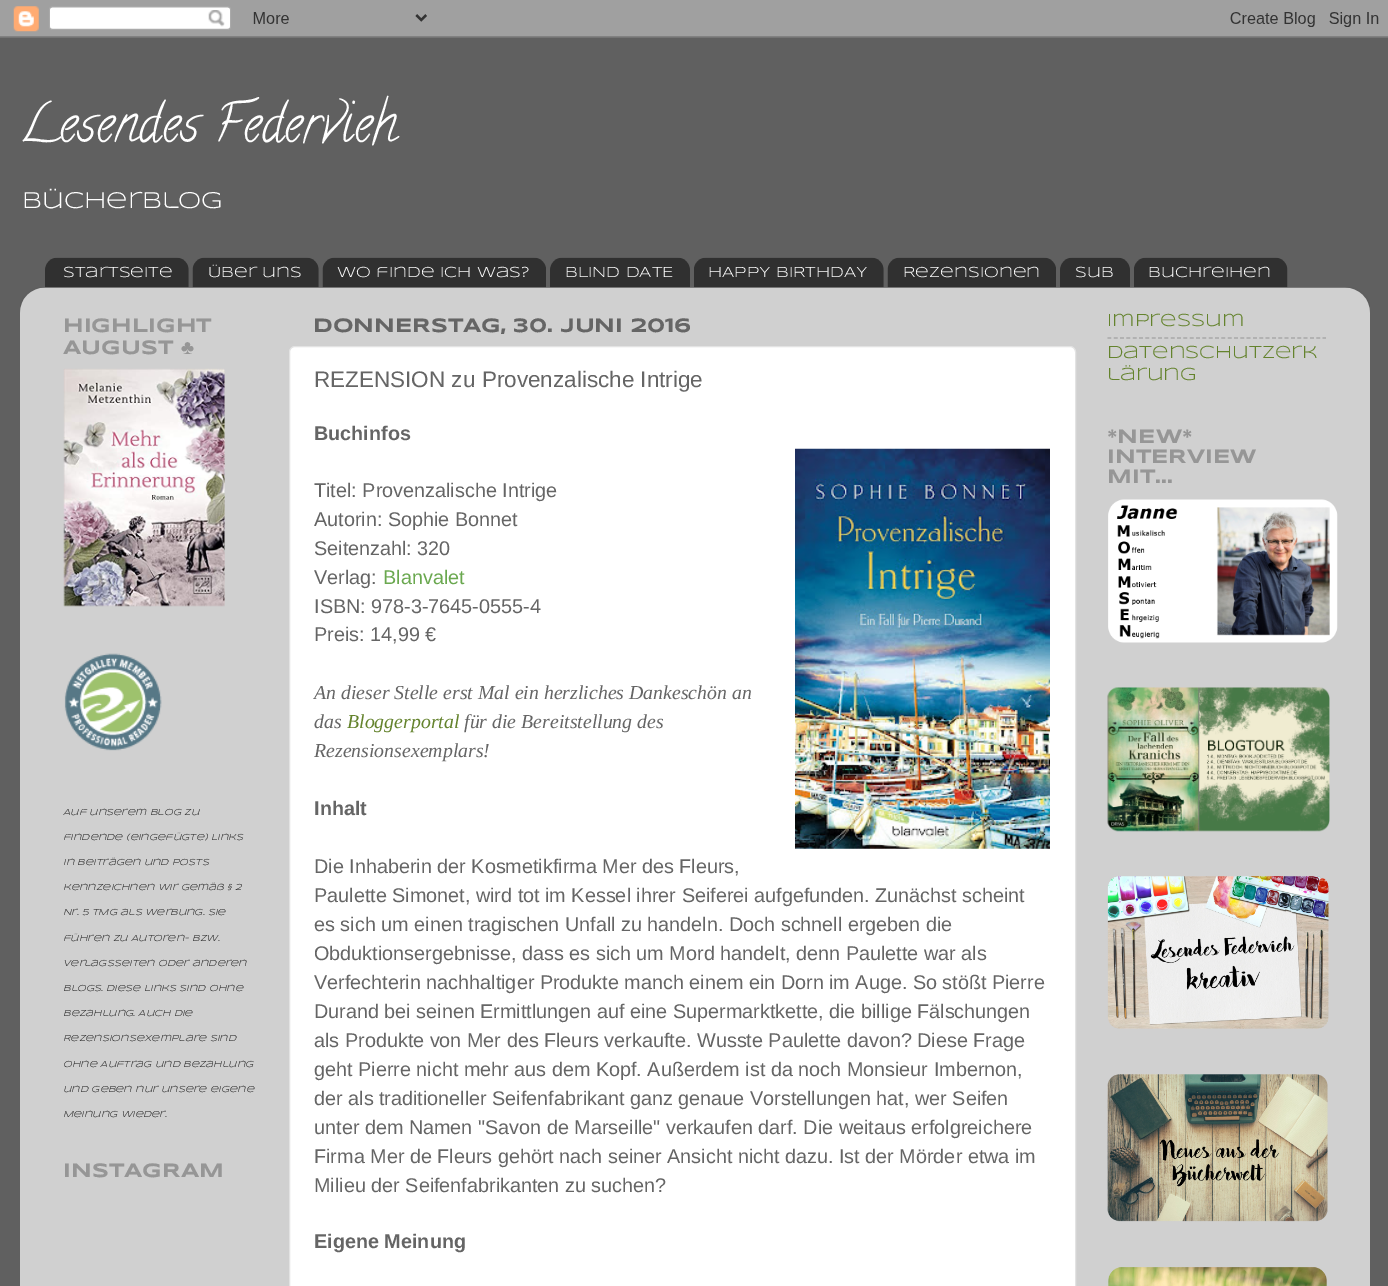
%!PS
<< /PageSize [1388 1286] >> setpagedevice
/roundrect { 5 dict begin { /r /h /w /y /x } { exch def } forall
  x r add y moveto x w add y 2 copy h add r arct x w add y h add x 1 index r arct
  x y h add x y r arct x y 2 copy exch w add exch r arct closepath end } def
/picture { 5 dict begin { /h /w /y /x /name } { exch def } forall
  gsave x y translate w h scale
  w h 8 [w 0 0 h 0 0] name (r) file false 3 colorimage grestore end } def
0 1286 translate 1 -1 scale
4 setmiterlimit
0.376 setgray
0 0 1388 1286 rectfill
(img1.rgb) 0 0 1388 38 picture
/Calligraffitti-Regular [52.5 0 0 -52.5 0 0] selectfont
1 setgray
19 140 moveto (Lesendes Federvieh) show
/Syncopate-Regular [23.5 0 0 -23.5 0 0] selectfont
22 208 moveto (Bücherblog) show
(img2.rgb) 45 257 144 31 picture
/Syncopate-Regular [15 0 0 -15 0 0] selectfont
63 277 moveto (Startseite) show
(img3.rgb) 192 257 127 31 picture
208 277 moveto (Über uns) show
(img4.rgb) 322 257 224 31 picture
337 277 moveto (Wo finde ich was?) show
(img5.rgb) 550 257 140 31 picture
565 277 moveto (BLIND DATE) show
(img6.rgb) 694 257 190 31 picture
708 277 moveto (HAPPY BIRTHDAY) show
(img7.rgb) 887 257 169 31 picture
903 277 moveto (Rezensionen) show
(img8.rgb) 1060 257 70 31 picture
1075 277 moveto (SuB) show
(img9.rgb) 1134 257 154 31 picture
1148 277 moveto (Buchreihen) show
(img10.rgb) 20 287 1350 999 picture
/Syncopate-Bold [20 0 0 -20 0 0] selectfont
0.588 setgray
63 332 moveto (HIGHLIGHT) show
63 354 moveto (AUGUST) show
/LiberationSerif-Bold [20 0 0 -20 0 0] selectfont
181 354 moveto (♣) show
(img11.rgb) 63 368 162 239 picture
(img12.rgb) 64 653 98 98 picture
/Syncopate-Italic [9 0 0 -9 0 0] selectfont
0.133 setgray
63 815 moveto (Auf unserem Blog zu) show
63 840 moveto (findende \(eingefügte\) Links) show
63 865 moveto (in Beiträgen und Posts) show
63 890 moveto (kennzeichnen wir gemäß § 2) show
63 915 moveto (Nr. 5 TMG als Werbung. Sie) show
63 941 moveto (führen zu Autoren- bzw.) show
63 966 moveto (Verlagsseiten oder anderen) show
63 991 moveto (Blogs. Diese Links sind ohne) show
63 1016 moveto (Bezahlung. Auch die) show
63 1041 moveto (Rezensionsexemplare sind) show
63 1067 moveto (ohne Auftrag und Bezahlung) show
63 1092 moveto (und geben nur unsere eigene) show
63 1117 moveto (Meinung wieder.) show
/Syncopate-Bold [20 0 0 -20 0 0] selectfont
0.588 setgray
63 1177 moveto (INSTAGRAM) show
0.396 setgray
313 332 moveto (DONNERSTAG, 30. JUNI 2016) show
1 setgray
289.5 346.5 786 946 5.5 roundrect gsave fill grestore
0.89 setgray
stroke
/LiberationSans-Regular [22.5 0 0 -22.5 0 0] selectfont
0.396 setgray
314 387 moveto (REZENSION zu Provenzalische Intrige) show
/LiberationSans-Bold [19.8 0 0 -19.8 0 0] selectfont
314 440 moveto (Buchinfos) show
/LiberationSans-Regular [19.8 0 0 -19.8 0 0] selectfont
314 497 moveto (Titel: Provenzalische Intrige) show
(img13.rgb) 795 448 255 401 picture
314 526 moveto (Autorin: Sophie Bonnet) show
314 555 moveto (Seitenzahl: 320) show
314 584 moveto (Verlag:) show
0.416 0.659 0.31 setrgbcolor
383 584 moveto (Blanvalet) show
0.396 setgray
314 613 moveto (ISBN: 978-3-7645-0555-4) show
314 641 moveto (Preis: 14,99 €) show
/LiberationSerif-Italic [19.8 0 0 -19.8 0 0] selectfont
314 699 moveto (An dieser Stelle erst Mal ein herzliches Dankeschön an) show
314 728 moveto (das) show
0.392 0.514 0.176 setrgbcolor
347 728 moveto (Bloggerportal) show
0.396 setgray
464 728 moveto (für die Bereitstellung des) show
314 757 moveto (Rezensionsexemplars!) show
/LiberationSans-Bold [19.8 0 0 -19.8 0 0] selectfont
314 815 moveto (Inhalt) show
/LiberationSans-Regular [19.8 0 0 -19.8 0 0] selectfont
314 873 moveto (Die Inhaberin der Kosmetikfirma Mer des Fleurs,) show
314 902 moveto (Paulette Simonet, wird tot im Kessel ihrer Seiferei aufgefunden. Zunächst scheint) show
314 931 moveto (es sich um einen tragischen Unfall zu handeln. Doch schnell ergeben die) show
314 960 moveto (Obduktionsergebnisse, dass es sich um Mord handelt, denn Paulette war als) show
314 989 moveto (Verfechterin nachhaltiger Produkte manch einem ein Dorn im Auge. So stößt Pierre) show
314 1018 moveto (Durand bei seinen Ermittlungen auf eine Supermarktkette, die billige Fälschungen) show
314 1047 moveto (als Produkte von Mer des Fleurs verkaufte. Wusste Paulette davon? Diese Frage) show
314 1076 moveto (geht Pierre nicht mehr aus dem Kopf. Außerdem ist da noch Monsieur Imbernon,) show
314 1105 moveto (der als traditioneller Seifenfabrikant ganz genaue Vorstellungen hat, wer Seifen) show
314 1134 moveto (unter dem Namen "Savon de Marseille" verkaufen darf. Die weitaus erfolgreichere) show
314 1163 moveto (Firma Mer de Fleurs gehört nach seiner Ansicht nicht dazu. Ist der Mörder etwa im) show
314 1192 moveto (Milieu der Seifenfabrikanten zu suchen?) show
/LiberationSans-Bold [19.8 0 0 -19.8 0 0] selectfont
314 1248 moveto (Eigene Meinung) show
/Syncopate-Regular [18 0 0 -18 0 0] selectfont
0.392 0.514 0.176 setrgbcolor
1107 326 moveto (Impressum) show
0.659 setgray
1.2 setlinewidth
[3.75 2.58] 0 setdash
newpath 1107.5 338 moveto 1326 338 lineto stroke
0.392 0.514 0.176 setrgbcolor
1107 358 moveto (Datenschutzerk) show
1107 380 moveto (lärung) show
/Syncopate-Bold [20 0 0 -20 0 0] selectfont
0.588 setgray
1107 443 moveto (*NEW*) show
1107 463 moveto (INTERVIEW) show
1107 483 moveto (MIT...) show
(img14.rgb) 1108 499 230 144 picture
(img15.rgb) 1107 687 223 145 picture
(img16.rgb) 1107 876 222 153 picture
(img17.rgb) 1107 1074 221 148 picture
(img18.rgb) 1108 1267 219 19 picture
showpage
